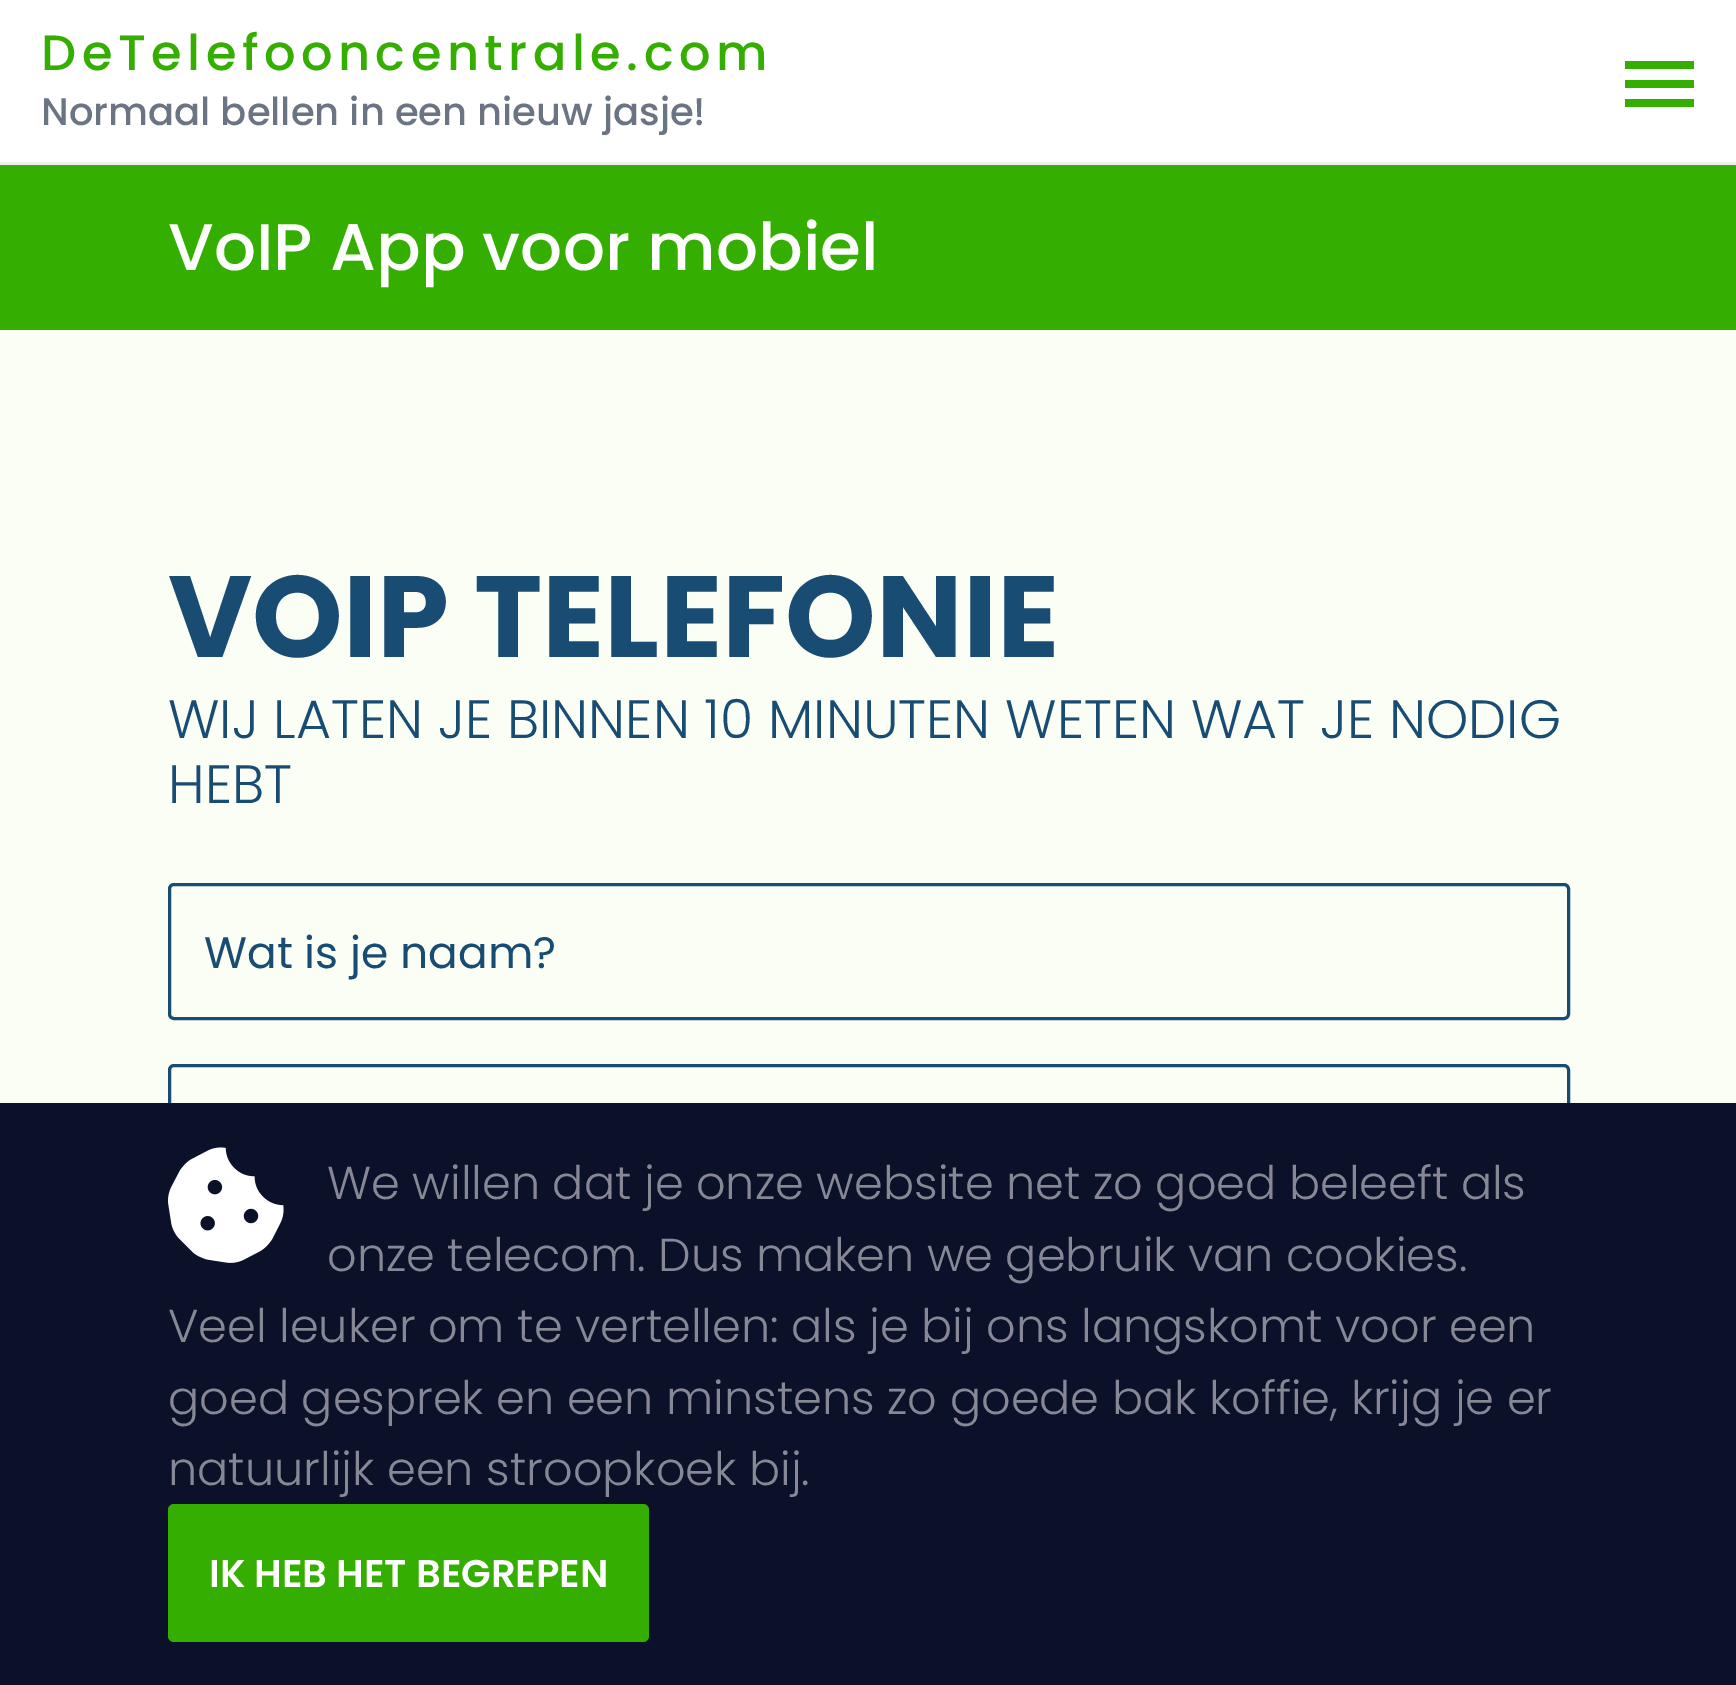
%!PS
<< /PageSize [1736 1685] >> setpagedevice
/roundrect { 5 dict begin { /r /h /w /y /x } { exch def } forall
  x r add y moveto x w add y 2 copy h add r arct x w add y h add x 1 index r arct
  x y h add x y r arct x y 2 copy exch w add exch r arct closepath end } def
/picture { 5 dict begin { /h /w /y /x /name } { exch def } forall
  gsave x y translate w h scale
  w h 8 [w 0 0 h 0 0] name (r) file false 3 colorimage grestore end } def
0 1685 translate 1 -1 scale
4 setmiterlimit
1 setgray
0 0 1736 1685 rectfill
0.929 0.937 0.945 setrgbcolor
0 162 1736 3 rectfill
/Poppins-Medium [49.5 0 0 -49.5 0 0] selectfont
0.208 0.682 0.008 setrgbcolor
41 70 moveto 5.5 0 (DeTelefooncentrale.com) ashow
/Poppins-Medium [38.5 0 0 -38.5 0 0] selectfont
0.416 0.455 0.514 setrgbcolor
41 125 moveto (Normaal bellen in een nieuw jasje!) show
0.208 0.682 0.008 setrgbcolor
1625 61 69 8 rectfill
1625 80 69 8 rectfill
1625 99 69 8 rectfill
0 165 1736 165 rectfill
/Poppins-Medium [66 0 0 -66 0 0] selectfont
1 setgray
168 270 moveto (VoIP App voor mobiel) show
0.98 0.996 0.961 setrgbcolor
0 330 1736 773 rectfill
/Poppins-Bold [115.5 0 0 -115.5 0 0] selectfont
0.094 0.298 0.447 setrgbcolor
168 657 moveto (VOIP TELEFONIE) show
/Poppins-Light [53.9 0 0 -53.9 0 0] selectfont
168 738 moveto (WIJ LATEN JE BINNEN 10 MINUTEN WETEN WAT JE NODIG) show
168 803 moveto (HEBT) show
3 setlinewidth
169.5 884.5 1399 134 4.5 roundrect stroke
/Poppins-Regular [44 0 0 -44 0 0] selectfont
204 968 moveto (Wat is je naam?) show
169.5 1065.5 1399 135 4.5 roundrect stroke
0.047 0.067 0.165 setrgbcolor
0 1103 1736 582 rectfill
(img1.rgb) 168 1147 116 116 picture
/Poppins-Light [46.2 0 0 -46.2 0 0] selectfont
0.525 0.533 0.584 setrgbcolor
327 1199 moveto -0.1 0 32 (We willen dat je onze website net zo goed beleeft als) widthshow
327 1271 moveto -0.25 0 32 (onze telecom. Dus maken we gebruik van cookies.) widthshow
168 1342 moveto -0.1 0 32 (Veel leuker om te vertellen: als je bij ons langskomt voor een) widthshow
168 1414 moveto -0.1 0 32 (goed gesprek en een minstens zo goede bak koffie, krijg je er) widthshow
168 1485 moveto (natuurlijk een stroopkoek bij.) show
0.208 0.682 0.008 setrgbcolor
168 1504 481 138 6 roundrect fill
/Poppins-SemiBold [38.5 0 0 -38.5 0 0] selectfont
1 setgray
209 1587 moveto (IK HEB HET BEGREPEN) show
showpage
